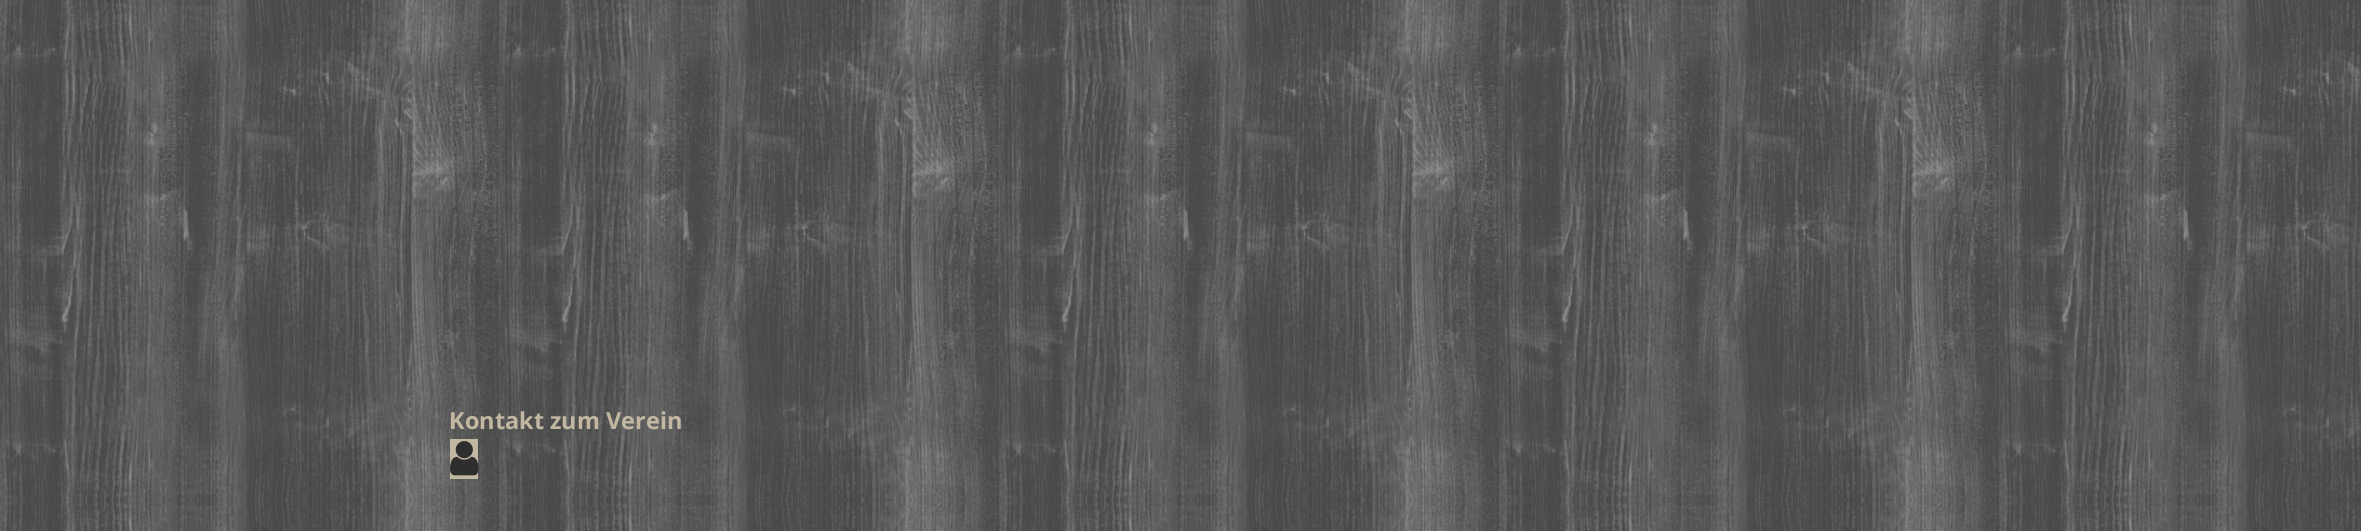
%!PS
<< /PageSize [2361 531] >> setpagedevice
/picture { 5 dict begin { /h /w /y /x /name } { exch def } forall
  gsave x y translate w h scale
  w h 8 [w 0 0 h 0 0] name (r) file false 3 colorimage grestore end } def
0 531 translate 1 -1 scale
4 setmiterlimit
0.286 setgray
0 0 2361 531 rectfill
(img1.rgb) 0 0 2361 531 picture
/OpenSans-Bold [23.5 0 0 -23.5 0 0] selectfont
0.761 0.722 0.635 setrgbcolor
449 429 moveto (Kontakt zum Verein) show
450 439 28 40 rectfill
(img2.rgb) 450 441 29 35 picture
showpage
